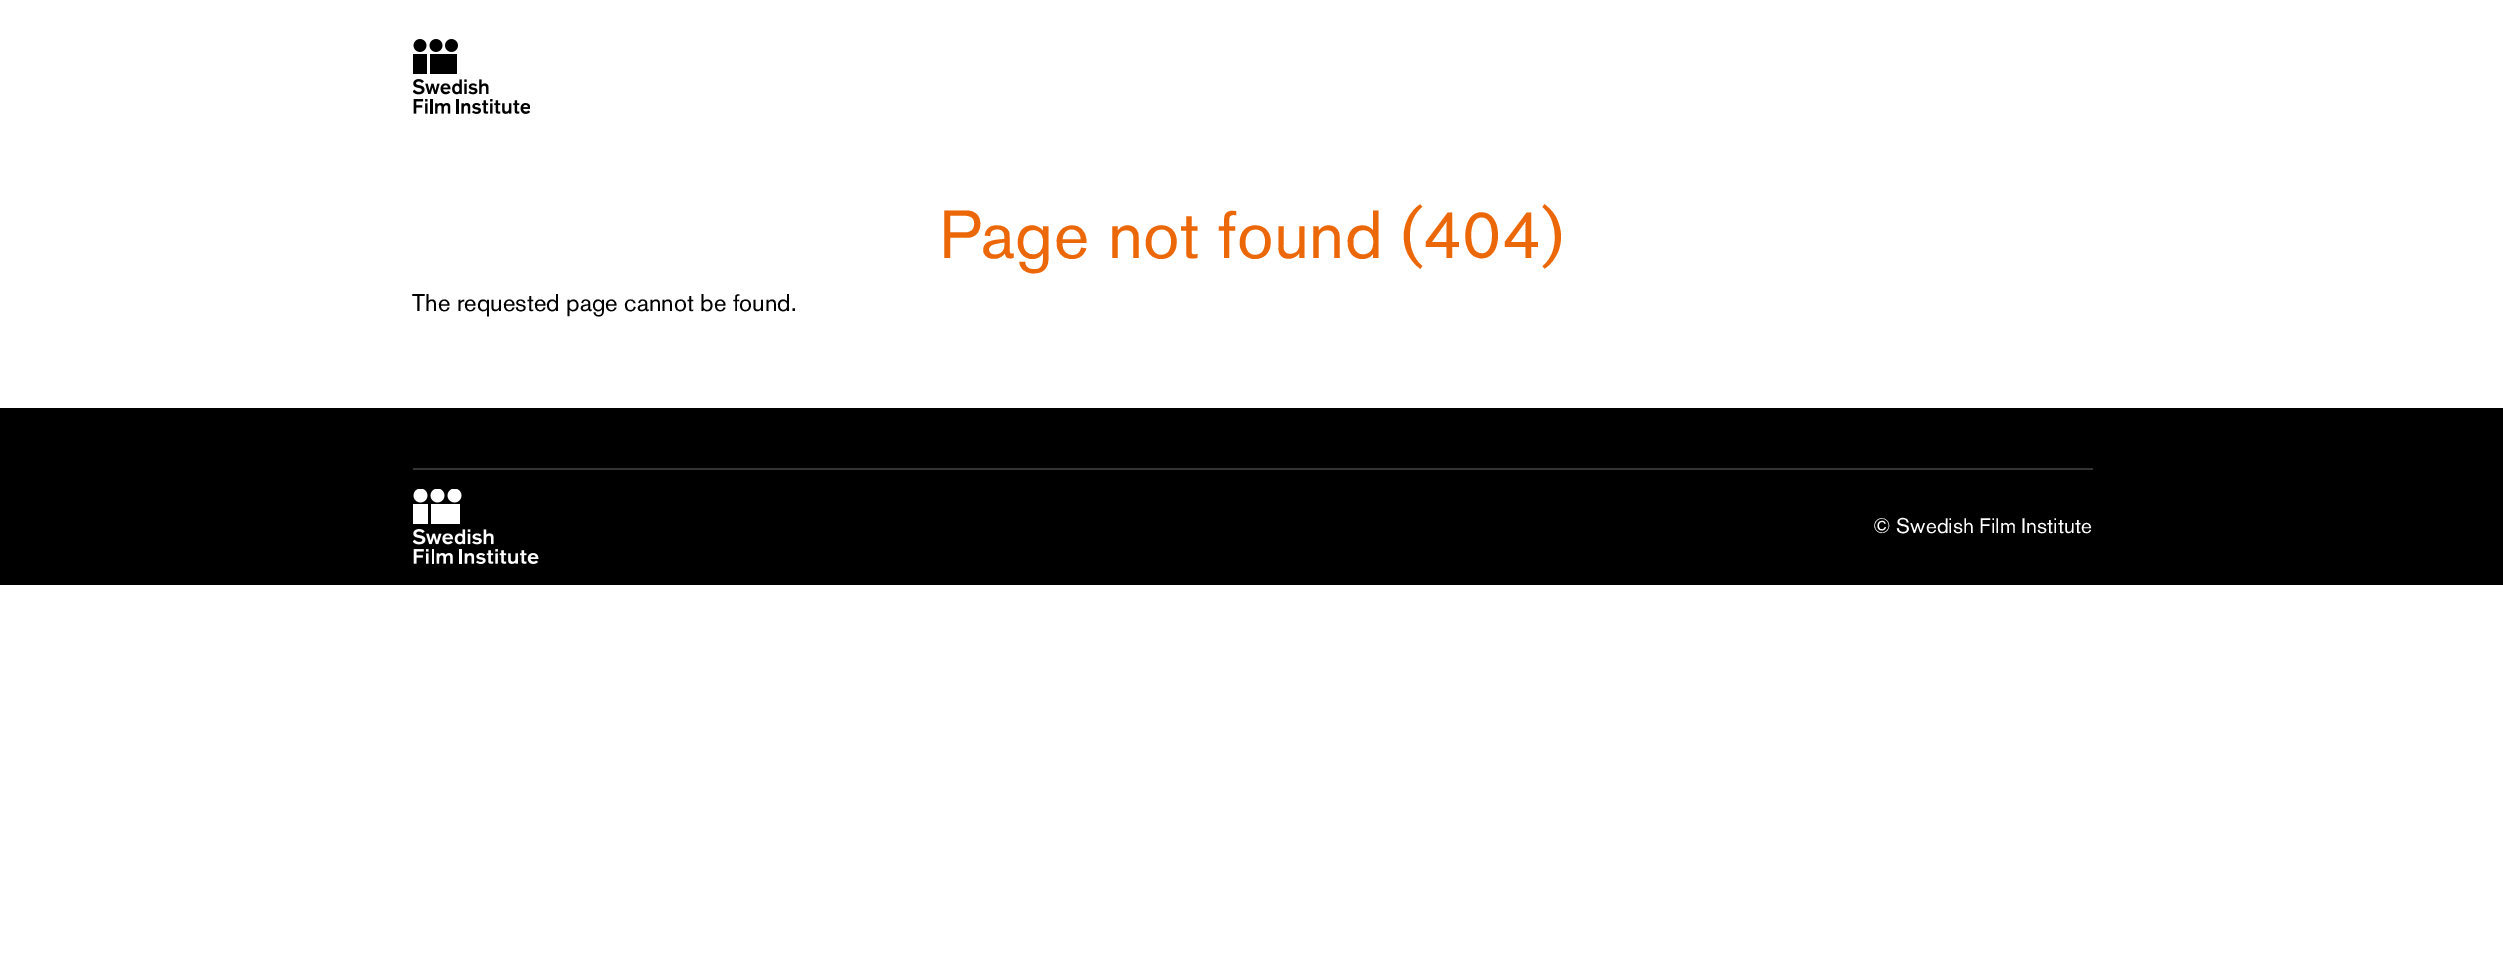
%!PS
<< /PageSize [2503 976] >> setpagedevice
/picture { 5 dict begin { /h /w /y /x /name } { exch def } forall
  gsave x y translate w h scale
  w h 8 [w 0 0 h 0 0] name (r) file false 3 colorimage grestore end } def
0 976 translate 1 -1 scale
4 setmiterlimit
1 setgray
0 0 2503 976 rectfill
(img1.rgb) 413 39 117 75 picture
/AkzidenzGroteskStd-Regular [67.5 0 0 -67.5 0 0] selectfont
0.925 0.404 0.027 setrgbcolor
939 258 moveto 0.25 0 (Page not found \(404\)) ashow
/AkzidenzGroteskStd-Regular [24 0 0 -24 0 0] selectfont
0 setgray
412 311 moveto (The requested page cannot be found.) show
0 408 2503 177 rectfill
0.2 setgray
413 468 1680 2 rectfill
(img2.rgb) 413 489 126 75 picture
/AkzidenzGroteskStd-Regular [21 0 0 -21 0 0] selectfont
1 setgray
1873 533 moveto (© Swedish Film Institute) show
showpage
